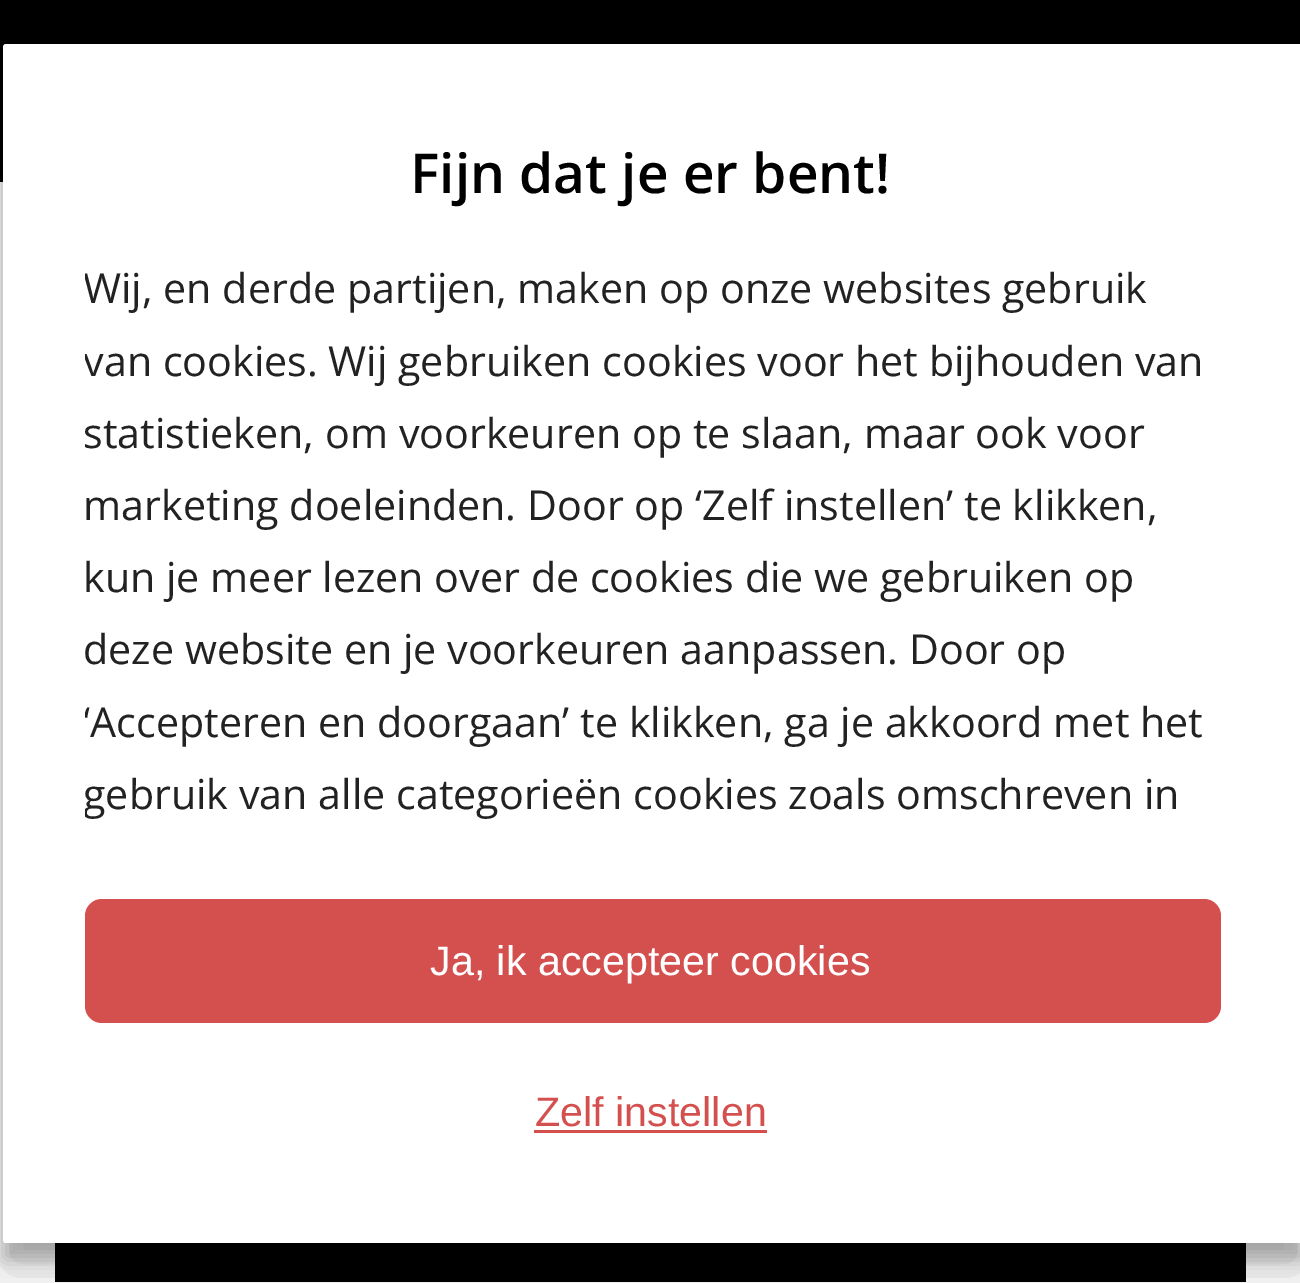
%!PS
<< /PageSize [1300 1283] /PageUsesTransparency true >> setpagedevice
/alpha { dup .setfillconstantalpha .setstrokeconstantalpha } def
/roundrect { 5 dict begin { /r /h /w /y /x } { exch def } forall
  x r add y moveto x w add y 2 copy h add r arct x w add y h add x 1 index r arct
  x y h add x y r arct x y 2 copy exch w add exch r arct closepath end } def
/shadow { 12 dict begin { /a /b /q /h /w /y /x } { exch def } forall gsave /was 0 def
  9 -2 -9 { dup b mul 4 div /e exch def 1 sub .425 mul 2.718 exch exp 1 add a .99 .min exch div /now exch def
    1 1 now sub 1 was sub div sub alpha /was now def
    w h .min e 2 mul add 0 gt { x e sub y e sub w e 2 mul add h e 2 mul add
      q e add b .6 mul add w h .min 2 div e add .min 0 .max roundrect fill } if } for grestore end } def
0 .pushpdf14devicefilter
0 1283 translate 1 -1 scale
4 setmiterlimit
1 setgray
0 0 1300 1283 rectfill
0 setgray
0 179 3 3 rectfill
0 0 1300 179 rectfill
55 1243 1191 39 rectfill
3 61 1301 1199 3 8 0.23 shadow
3 72 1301 1199 3 27.5 0.19 shadow
1 setgray
3 44 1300 1199 3 roundrect fill
/OpenSans-SemiBold [55 0 0 -55 0 0] selectfont
0 setgray
410 193 moveto (Fijn dat je er bent!) show
gsave
85 253 1136 591 rectclip
/OpenSans-Regular [41.25 0 0 -41.25 0 0] selectfont
0.133 setgray
83 303 moveto (Wij, en derde partijen, maken op onze websites gebruik) show
83 376 moveto (van cookies. Wij gebruiken cookies voor het bijhouden van) show
83 448 moveto (statistieken, om voorkeuren op te slaan, maar ook voor) show
grestore
/OpenSans-Regular [41.25 0 0 -41.25 0 0] selectfont
0.133 setgray
83 520 moveto (marketing doeleinden. Door op ‘Zelf instellen’ te klikken,) show
83 592 moveto (kun je meer lezen over de cookies die we gebruiken op) show
gsave
85 253 1136 591 rectclip
83 664 moveto (deze website en je voorkeuren aanpassen. Door op) show
83 737 moveto (‘Accepteren en doorgaan’ te klikken, ga je akkoord met het) show
83 809 moveto (gebruik van alle categorieën cookies zoals omschreven in) show
grestore
0.827 0.314 0.31 setrgbcolor
85 899 1136 124 17 roundrect fill
/LiberationSans-Regular [41.25 0 0 -41.25 0 0] selectfont
1 setgray
430 975 moveto (Ja, ik accepteer cookies) show
0.827 0.314 0.31 setrgbcolor
535 1126 moveto (Zelf instellen) show
534 1130 233 3 rectfill
.poppdf14devicefilter showpage
